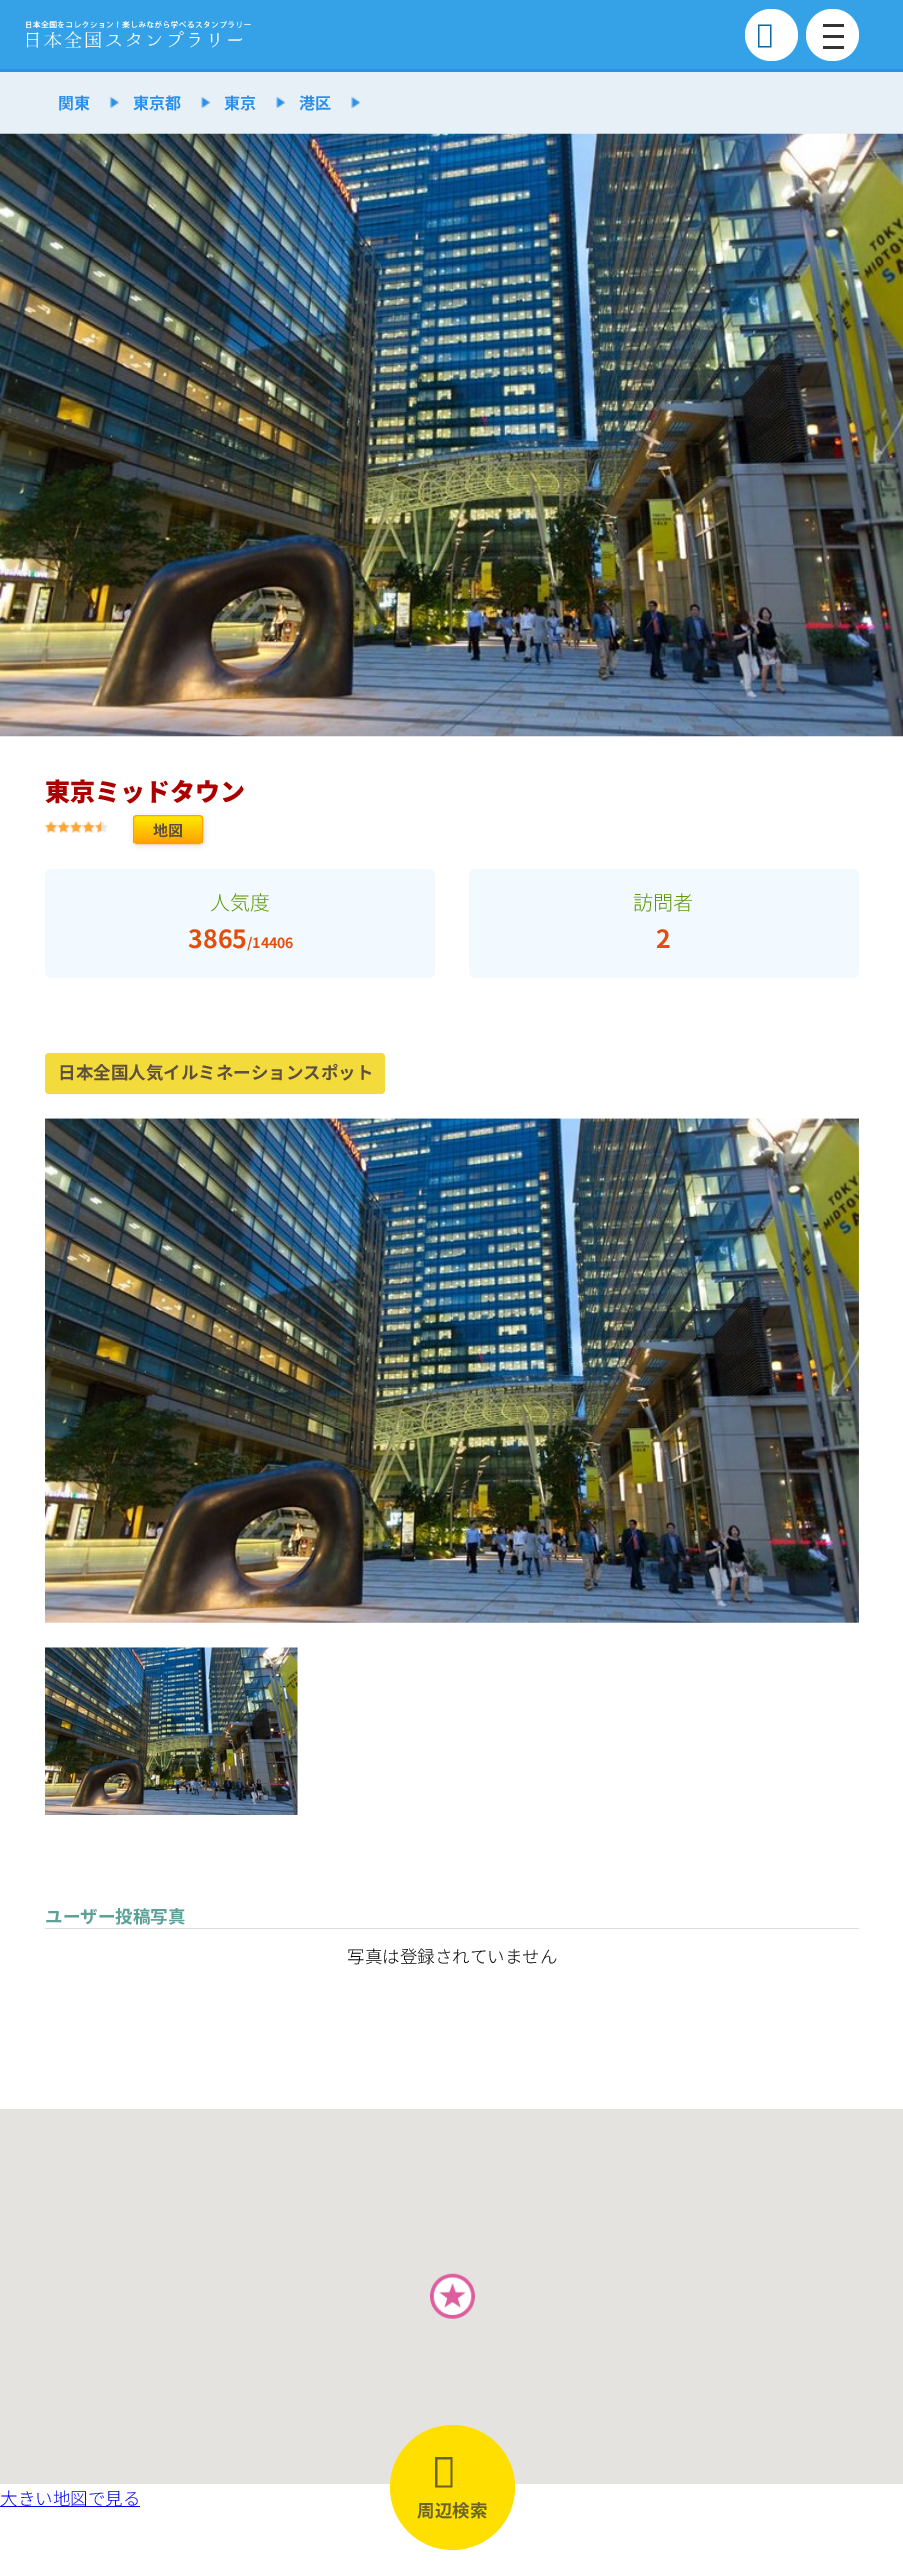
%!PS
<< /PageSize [903 2575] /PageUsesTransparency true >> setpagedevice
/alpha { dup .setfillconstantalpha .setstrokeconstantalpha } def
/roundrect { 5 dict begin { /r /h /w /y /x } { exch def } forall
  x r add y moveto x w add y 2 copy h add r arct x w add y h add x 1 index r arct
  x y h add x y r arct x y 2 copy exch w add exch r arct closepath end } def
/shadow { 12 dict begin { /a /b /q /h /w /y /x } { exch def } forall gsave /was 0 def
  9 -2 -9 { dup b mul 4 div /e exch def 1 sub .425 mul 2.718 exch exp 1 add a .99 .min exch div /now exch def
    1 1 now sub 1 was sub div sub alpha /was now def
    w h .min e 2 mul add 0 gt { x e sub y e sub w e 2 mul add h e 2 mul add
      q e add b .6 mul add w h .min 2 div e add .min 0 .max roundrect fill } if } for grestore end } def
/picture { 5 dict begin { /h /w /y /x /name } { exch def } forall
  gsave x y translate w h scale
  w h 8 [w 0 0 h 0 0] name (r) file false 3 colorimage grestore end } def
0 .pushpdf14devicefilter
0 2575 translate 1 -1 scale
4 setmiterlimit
1 setgray
0 0 903 2575 rectfill
0.208 0.635 0.906 setrgbcolor
0 0 903 69 rectfill
(img1.rgb) 26 20 225 28 picture
1 setgray
745 9 53 52 26 roundrect fill
0.055 0.416 0.647 setrgbcolor
newpath 758 47.5 moveto 758 24.5 lineto 771.5 24.5 lineto 771.5 47.5 lineto closepath 759.5 46 moveto 770 46 lineto 770 26 lineto 759.5 26 lineto closepath fill
1 setgray
806 9 53 52 26 roundrect fill
0.2 setgray
823 24 21 3 rectfill
823 35 21 3 rectfill
823 46 21 3 rectfill
0.906 0.941 0.969 setrgbcolor
0 72 903 62 rectfill
0.169 0.565 0.925 setrgbcolor
0 69 903 3 rectfill
(img2.rgb) 109 96 10 13 picture
/NotoSansJP-Bold [16 0 0 -16 0 0] selectfont
58 109 moveto (関東) show
(img3.rgb) 201 96 10 13 picture
133 109 moveto (東京都) show
(img4.rgb) 276 96 10 13 picture
224 109 moveto (東京) show
(img4.rgb) 351 96 10 13 picture
299 109 moveto (港区) show
(img5.rgb) 0 133 903 604 picture
/NotoSansJP-Black [25 0 0 -25 0 0] selectfont
0.667 0 0 setrgbcolor
45 801 moveto (東京ミッドタウン) show
(img6.rgb) 46 821 62 12 picture
(img7.rgb) 45 821 57 12 picture
0 setgray
134 816 70 29 4 3 0.15 shadow
gsave
133 815 70 29 4 roundrect clip newpath
gsave newpath 133 816 moveto 203 816 lineto 203 843 lineto 133 843 lineto closepath clip newpath
<< /ShadingType 2 /ColorSpace /DeviceRGB /Coords [168 816 168 843] /Extend [true true] /Function << /FunctionType 2 /Domain [0 1] /C0 [1 0.918 0] /C1 [1 0.635 0] /N 1 >> >> shfill grestore
grestore
1 0.635 0 setrgbcolor
133.5 815.5 69 28 3.5 roundrect stroke
/NotoSansJP-Bold [15 0 0 -15 0 0] selectfont
0.369 0.314 0.243 setrgbcolor
153 836 moveto (地図) show
0.953 0.98 1 setrgbcolor
45 869 390 109 6 roundrect fill
/NotoSansJP-Light [20 0 0 -20 0 0] selectfont
0.361 0.588 0.016 setrgbcolor
210 910 moveto (人気度) show
/NotoSansJP-Bold [25 0 0 -25 0 0] selectfont
0.894 0.306 0.047 setrgbcolor
188 948 moveto (3865) show
/NotoSansJP-Bold [14 0 0 -14 0 0] selectfont
247 948 moveto (/14406) show
0.953 0.98 1 setrgbcolor
469 869 390 109 6 roundrect fill
/NotoSansJP-Light [20 0 0 -20 0 0] selectfont
0.361 0.588 0.016 setrgbcolor
633 910 moveto (訪問者) show
/NotoSansJP-Bold [25 0 0 -25 0 0] selectfont
0.894 0.306 0.047 setrgbcolor
656 948 moveto (2) show
0.953 0.859 0.231 setrgbcolor
45 1053 340 41 4 roundrect fill
/NotoSansJP-Bold [17.5 0 0 -17.5 0 0] selectfont
0.369 0.314 0.243 setrgbcolor
58 1079 moveto (日本全国人気イルミネーションスポット) show
(img8.rgb) 45 1118 814 505 picture
(img9.rgb) 45 1118 814 505 picture
(img10.rgb) 45 1647 253 168 picture
0.867 setgray
45 1928 814 1 rectfill
0.361 0.627 0.596 setrgbcolor
45 1923 moveto (ユーザー投稿写真) show
/NotoSansJP-Light [17.5 0 0 -17.5 0 0] selectfont
0 setgray
347 1963 moveto (写真は登録されていません) show
0.898 0.89 0.875 setrgbcolor
0 2109 903 375 rectfill
(img11.rgb) 430 2273 45 46 picture
0 0 0.933 setrgbcolor
0 2506 140 1 rectfill
0 2505 moveto (大きい地図で見る) show
1 0.875 0 setrgbcolor
newpath 452.5 2487.5 62.5 0 360 arc closepath fill
0.424 0.392 0.153 setrgbcolor
newpath 435 2487.5 moveto 435 2457 lineto 452.5 2457 lineto 452.5 2487.5 lineto closepath 437.5 2485.5 moveto 450.5 2485.5 lineto 450.5 2459.5 lineto 437.5 2459.5 lineto closepath fill
/NotoSansJP-Bold [17.5 0 0 -17.5 0 0] selectfont
417 2517 moveto (周辺検索) show
.poppdf14devicefilter showpage
